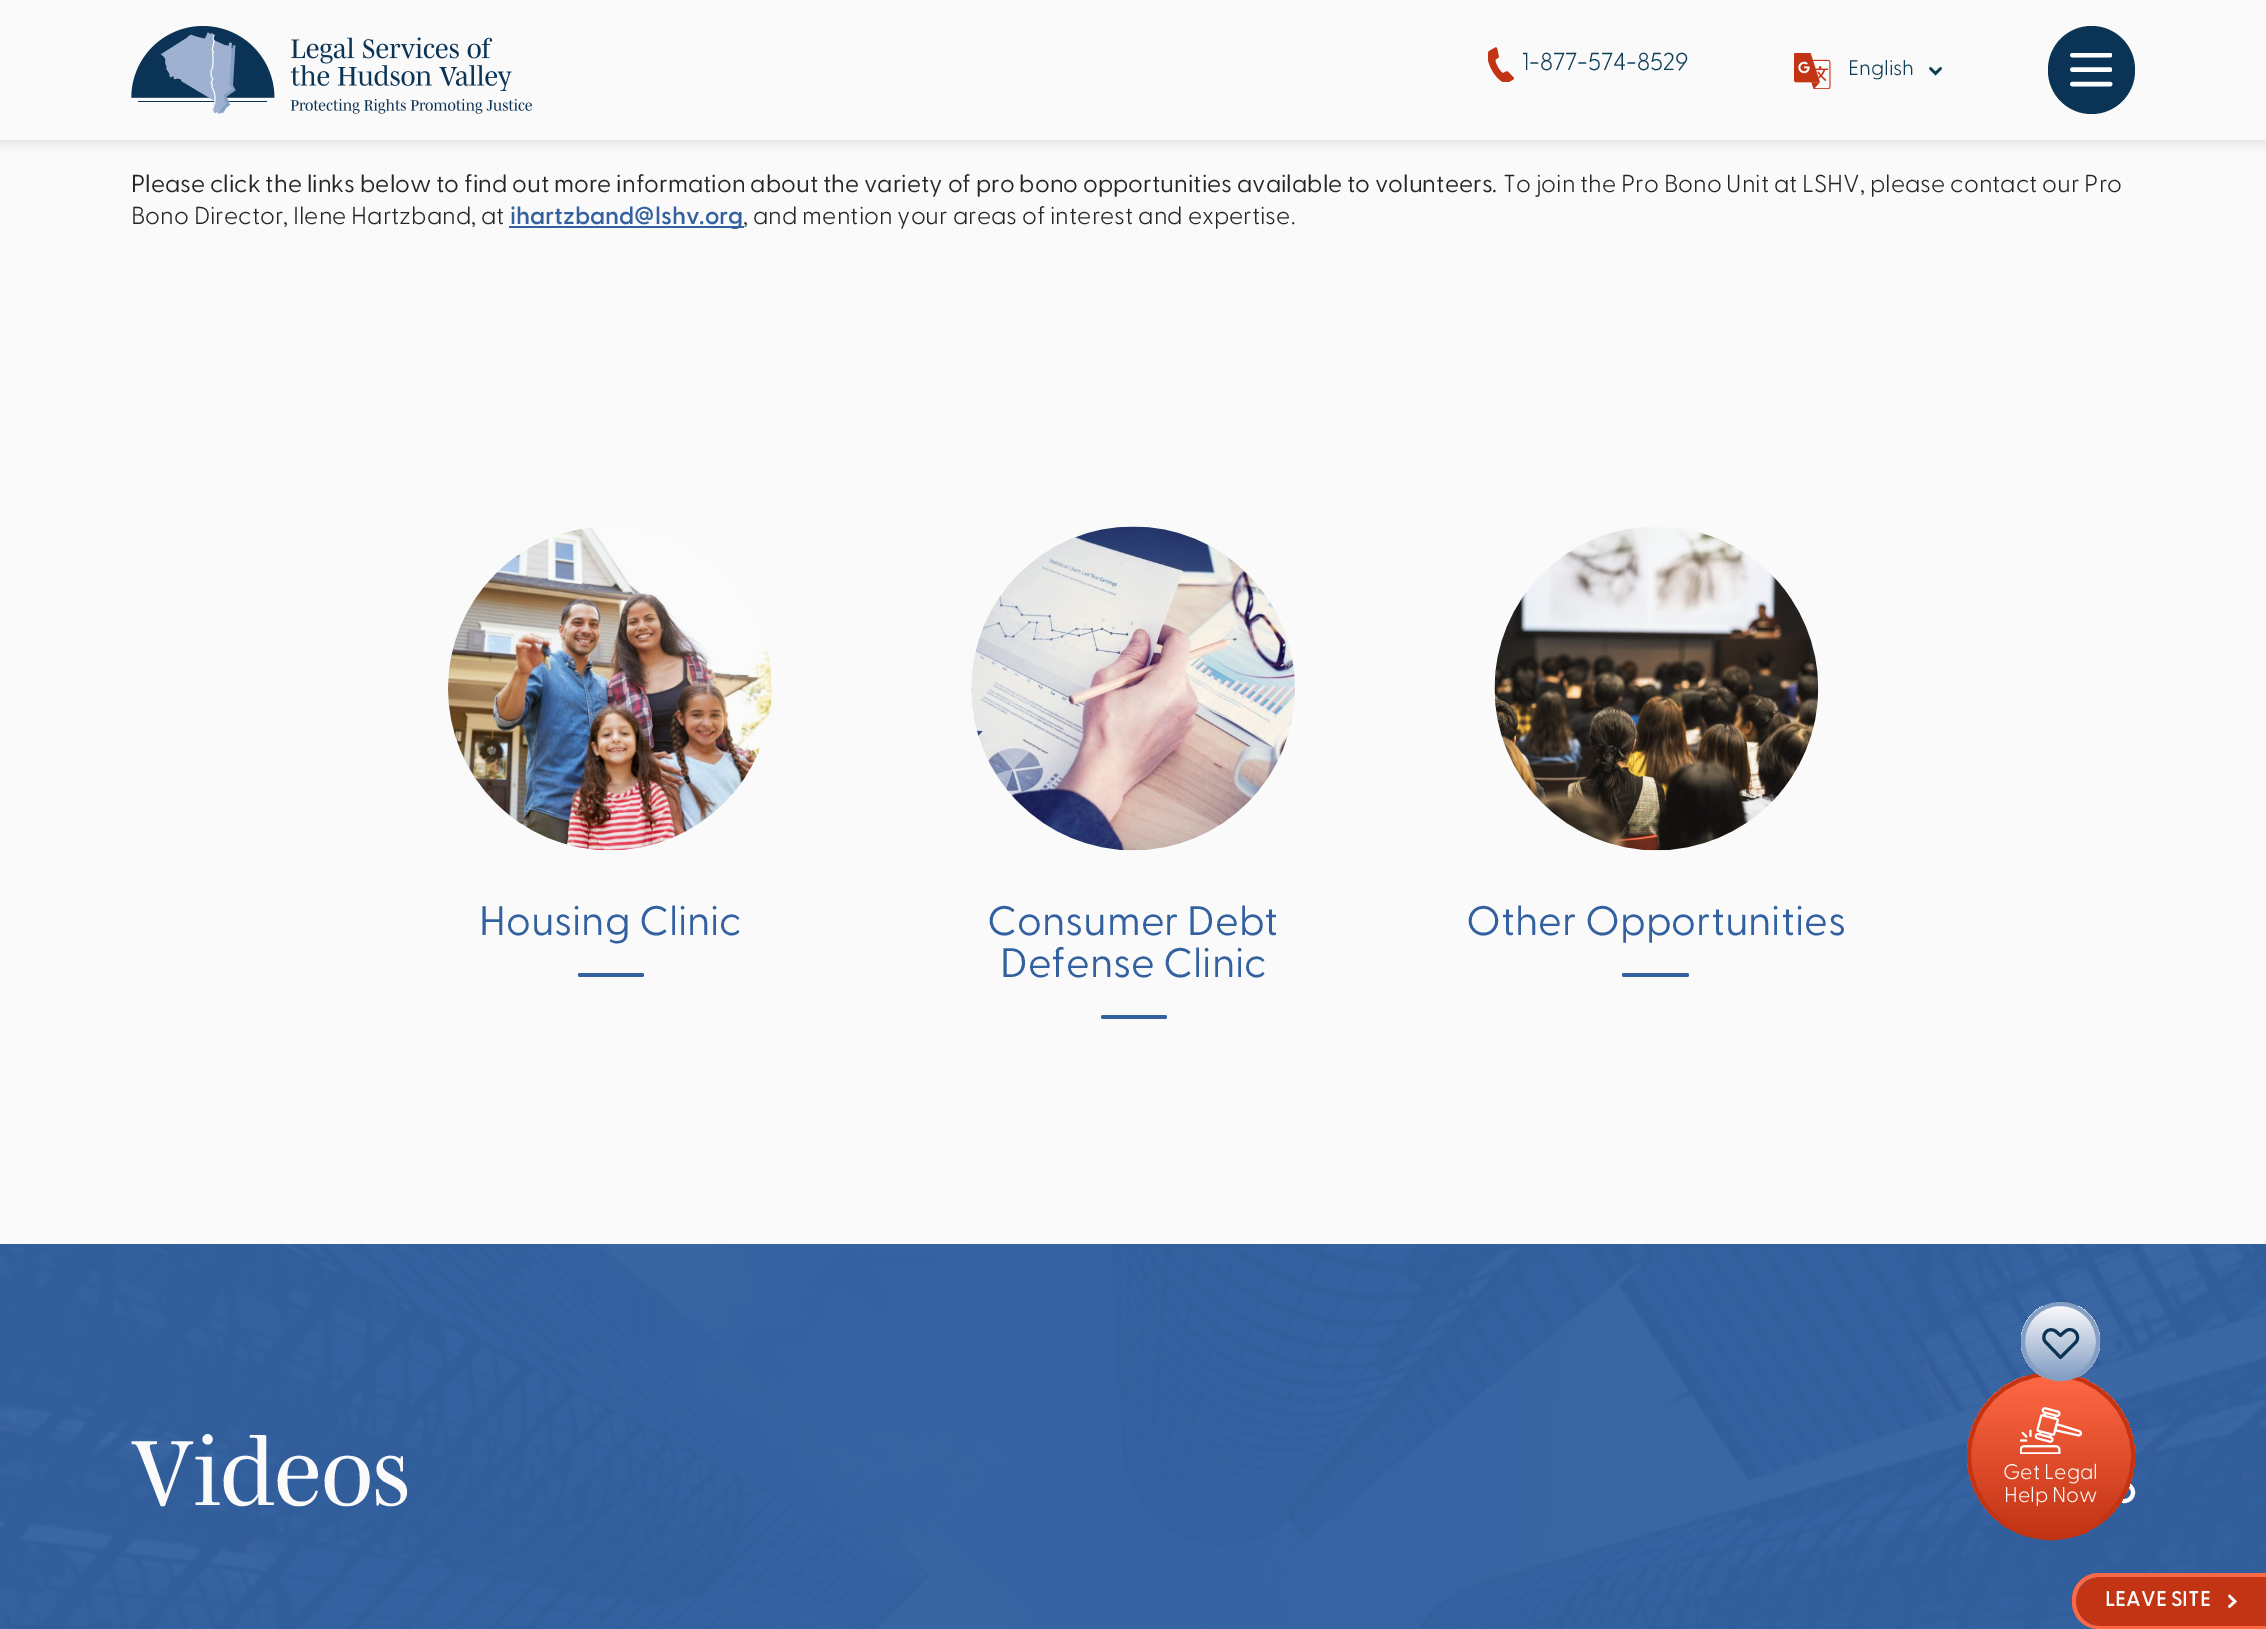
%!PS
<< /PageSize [2266 1629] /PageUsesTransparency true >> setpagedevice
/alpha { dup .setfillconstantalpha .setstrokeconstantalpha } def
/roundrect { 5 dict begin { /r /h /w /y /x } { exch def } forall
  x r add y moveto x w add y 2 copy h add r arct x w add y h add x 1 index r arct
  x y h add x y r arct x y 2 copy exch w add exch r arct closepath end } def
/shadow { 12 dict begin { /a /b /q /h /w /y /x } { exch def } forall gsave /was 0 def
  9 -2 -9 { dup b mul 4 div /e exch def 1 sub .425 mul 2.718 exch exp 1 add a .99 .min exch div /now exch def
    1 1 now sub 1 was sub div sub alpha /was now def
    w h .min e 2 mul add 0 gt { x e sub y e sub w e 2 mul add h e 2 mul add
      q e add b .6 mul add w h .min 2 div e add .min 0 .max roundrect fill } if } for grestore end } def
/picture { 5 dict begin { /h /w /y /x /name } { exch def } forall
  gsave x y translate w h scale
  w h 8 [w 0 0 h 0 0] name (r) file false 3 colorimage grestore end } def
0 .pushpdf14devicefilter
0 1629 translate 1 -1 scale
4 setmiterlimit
0.98 setgray
0 0 2266 1629 rectfill
0 setgray
0 0 2266 140 0 7 0.16 shadow
0.98 setgray
0 0 2266 140 rectfill
(img1.rgb) 131 26 401 88 picture
(img2.rgb) 1488 47 26 35 picture
/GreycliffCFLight-Light [24.5 0 0 -24.5 0 0] selectfont
0.043 0.239 0.333 setrgbcolor
1522 70 moveto (1-877-574-8529) show
(img3.rgb) 1794 53 37 36 picture
/GreycliffCFLight-Light [21 0 0 -21 0 0] selectfont
1848 75 moveto (English) show
2.6 setlinewidth
1 setlinecap
newpath 1940.5 68.5 moveto 1935.5 73.5 lineto 1930.5 68.5 lineto stroke
0.043 0.2 0.333 setrgbcolor
2048 26 87 88 43.5 roundrect fill
gsave
2070 53 42 35 rectclip
1 setgray
4.6 setlinewidth
newpath 2072.5 55 moveto 2110 55 lineto 2072.5 69.5 moveto 2110 69.5 lineto stroke
grestore
1 setgray
4.6 setlinewidth
newpath 2072.5 84 moveto 2110 84 lineto stroke
/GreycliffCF-Regular [24.5 0 0 -24.5 0 0] selectfont
0.149 setgray
131 192 moveto (Please click the links below to find out more information about the variety of pro bono opportunities available to volunteers.) show
/GreycliffCFLight-Light [24.5 0 0 -24.5 0 0] selectfont
1503 192 moveto (To join the Pro Bono Unit at LSHV, please contact our Pro) show
131 224 moveto (Bono Director, Ilene Hartzband, at) show
0.2 0.38 0.627 setrgbcolor
509 226 235 2 rectfill
/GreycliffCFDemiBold-SemiBold [24.5 0 0 -24.5 0 0] selectfont
510 224 moveto (ihartzband@lshv.org) show
/GreycliffCFLight-Light [24.5 0 0 -24.5 0 0] selectfont
0.149 setgray
743 224 moveto (, and mention your areas of interest and expertise.) show
(img4.rgb) 448 527 324 324 picture
/GreycliffCF-Regular [41.25 0 0 -41.25 0 0] selectfont
0.2 0.38 0.627 setrgbcolor
479 935 moveto (Housing Clinic) show
578 973 66 4 2 roundrect fill
(img5.rgb) 971 526 324 325 picture
987 935 moveto (Consumer Debt) show
1000 977 moveto (Defense Clinic) show
1101 1015 66 4 2 roundrect fill
(img6.rgb) 1494 527 325 324 picture
1466 935 moveto (Other Opportunities) show
1622 973 67 4 2 roundrect fill
(img7.rgb) 0 1244 2266 385 picture
/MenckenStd-Regular [94.5 0 0 -94.5 0 0] selectfont
0.98 setgray
131 1505 moveto (Videos) show
1 setgray
4 setlinewidth
0 setlinecap
newpath 2124.5 1492.5 8.5 0 360 arc closepath stroke
gsave
1967 1372 168 168 84 roundrect clip newpath
gsave newpath 1967 1376 moveto 2135 1376 lineto 2135 1537 lineto 1967 1537 lineto closepath clip newpath
<< /ShadingType 2 /ColorSpace /DeviceRGB /Coords [2051 1376 2051 1537] /Extend [true true] /Function << /FunctionType 2 /Domain [0 1] /C0 [1 0.408 0.271] /C1 [0.761 0.204 0.078] /N 1 >> >> shfill grestore
grestore
0.761 0.204 0.078 setrgbcolor
newpath 2051 1456 82 0 360 arc closepath stroke
gsave
2021 1302 79 79 39.5 roundrect clip newpath
gsave newpath 2021 1306 moveto 2100 1306 lineto 2100 1377 lineto 2021 1377 lineto closepath clip newpath
<< /ShadingType 2 /ColorSpace /DeviceRGB /Coords [2061 1306 2061 1377] /Extend [true true] /Function << /FunctionType 2 /Domain [0 1] /C0 [0.98 0.98 0.98] /C1 [0.518 0.62 0.769] /N 1 >> >> shfill grestore
grestore
0.518 0.62 0.769 setrgbcolor
newpath 2060.5 1341.5 37.5 0 360 arc closepath stroke
0.043 0.2 0.333 setrgbcolor
3 setlinewidth
1 setlinecap
1 setlinejoin
newpath 2060.5 1357.5 moveto 2046 1342.5 lineto 2043 1340 2043 1335 2046 1332 curveto 2048.5 1329 2053 1329 2056 1331.5 curveto 2060.5 1335.5 lineto 2062.5 1333.5 2065 1331 2067.5 1330 curveto 2075 1327.5 2081 1337 2075.5 1342.5 curveto closepath stroke
(img8.rgb) 2020 1407 62 47 picture
/GreycliffCFLight-Light [21.25 0 0 -21.25 0 0] selectfont
0.98 setgray
2003 1479 moveto (Get Legal) show
2004 1502 moveto (Help Now) show
0.761 0.204 0.078 setrgbcolor
newpath 2100.5 1577 moveto 2266 1577 lineto 2266 1626 lineto 2100.5 1626 lineto 2087 1626 2076 1615 2076 1601.5 curveto 2076 1588 2087 1577 2100.5 1577 curveto closepath fill
1 0.408 0.271 setrgbcolor
newpath 2099 1573 moveto 2266 1573 lineto 2266 1629 lineto 2099 1629 lineto 2084 1629 2072 1617 2072 1602 curveto 2072 1600 lineto 2072 1585 2084 1573 2099 1573 curveto closepath 2099 1577 moveto 2266 1577 lineto 2266 1626 lineto 2099 1626 lineto 2086 1626 2076 1615 2076 1602 curveto 2076 1600 lineto 2076 1587 2086 1577 2099 1577 curveto closepath eofill
/GreycliffCFDemiBold-SemiBold [21.25 0 0 -21.25 0 0] selectfont
0.98 setgray
2105 1606 moveto (LEAVE SITE) show
2.6 setlinewidth
0 setlinejoin
newpath 2229.5 1596 moveto 2235 1601.5 lineto 2229.5 1606.5 lineto stroke
.poppdf14devicefilter showpage
